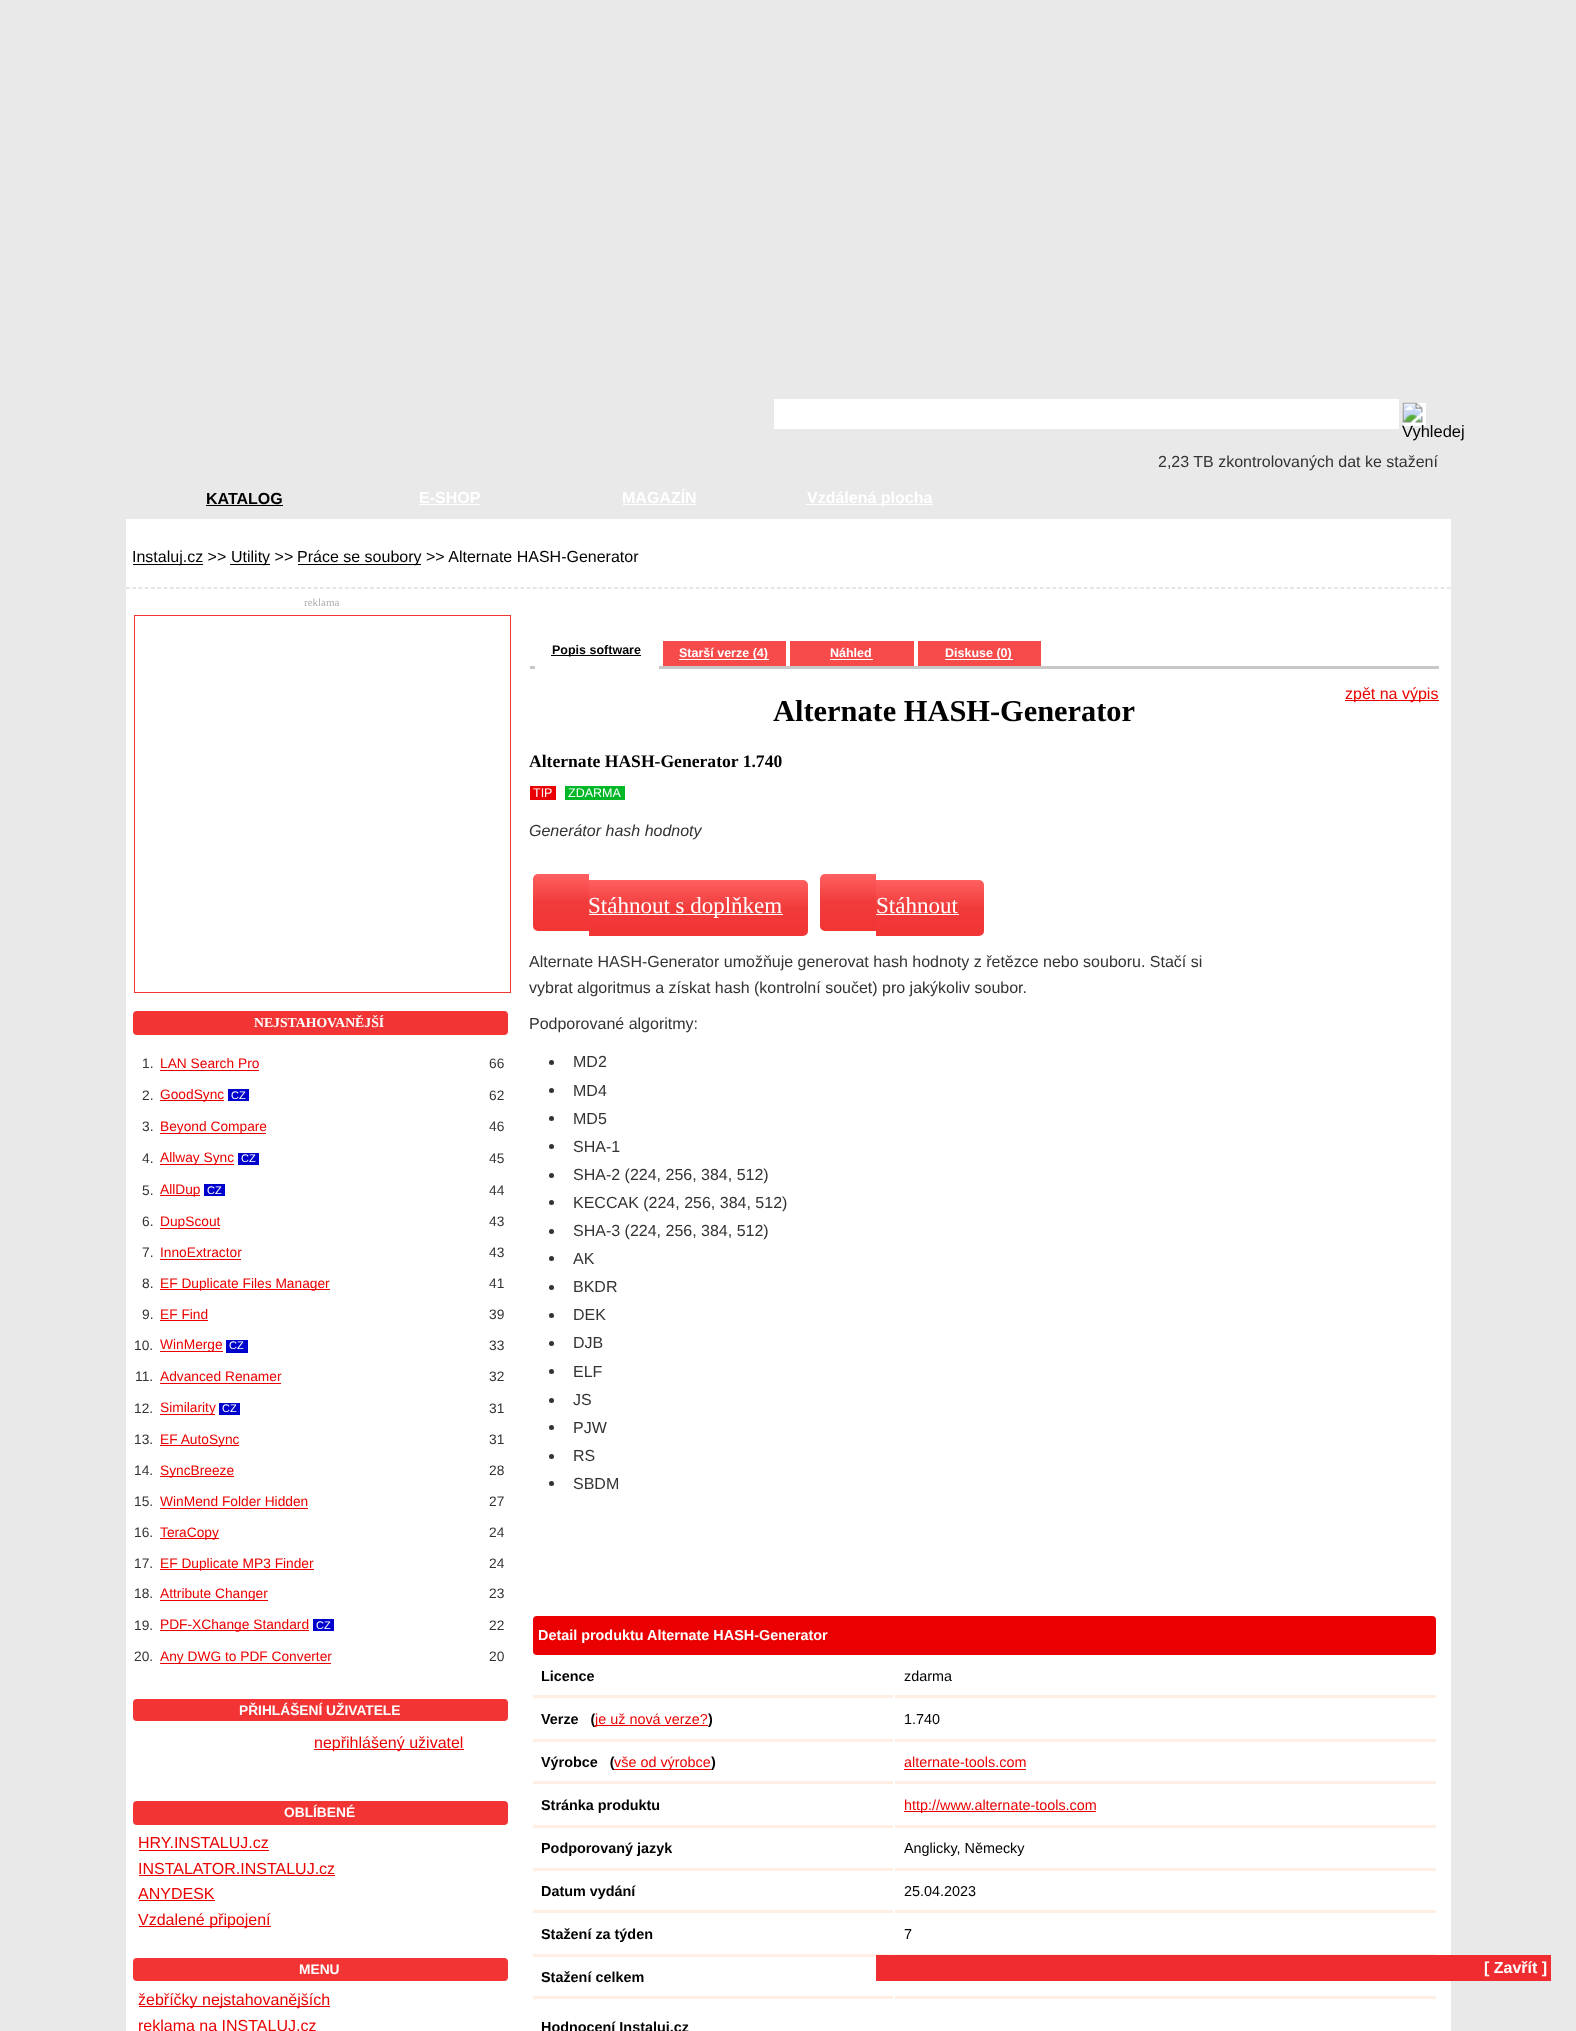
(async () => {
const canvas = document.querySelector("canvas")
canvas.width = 1576
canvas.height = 2031
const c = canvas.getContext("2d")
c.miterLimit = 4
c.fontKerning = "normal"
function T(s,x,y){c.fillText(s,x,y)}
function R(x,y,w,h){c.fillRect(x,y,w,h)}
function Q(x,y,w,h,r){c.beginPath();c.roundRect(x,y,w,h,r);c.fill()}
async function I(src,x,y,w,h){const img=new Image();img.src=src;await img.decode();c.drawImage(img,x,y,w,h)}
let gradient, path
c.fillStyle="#e9e9e9"
R(0,0,1576,2031)
c.fillStyle="#fff"
R(774,399,625,30)
R(1403,403,23,23)
await I("1.png",1402,402,22,25)
c.font="16.5px Liberation Sans"
c.fillStyle="#000"
T("Vyhledej",1402,437)
c.font="16px Liberation Sans"
c.fillStyle="#333"
T("2,23 TB zkontrolovaných dat ke stažení",1158,467)
c.font="bold 16px Liberation Sans"
c.fillStyle="#000"
T("KATALOG",206,504)
R(206,505,77,1)
c.fillStyle="#fff"
T("E-SHOP",419,503)
R(419,504,61,1)
T("MAGAZÍN",622,503)
R(623,504,73,1)
R(806,504,127,1)
T("Vzdálená plocha",807,503)
R(126,519,1325,1512)
c.fillStyle="#000"
R(133,564,70,1)
c.font="16px Liberation Sans"
T("Instaluj.cz >>",132,562)
R(230,564,40,1)
T("Utility >>",231,562)
R(298,564,123,1)
T("Práce se soubory >> Alternate HASH-Generator",297,562)
path = new Path2D("M126 588h1325")
c.strokeStyle="#cdcdcd"
c.lineWidth=1.2
c.setLineDash([3.75,2.51])
c.stroke(path)
c.font="11px Liberation Serif"
c.fillStyle="#aeaeae"
T("reklama",304,606)
c.strokeStyle="#f23434"
c.lineWidth=1
c.setLineDash([])
c.strokeRect(134.5,615.5,376,377)
c.fillStyle="#f23434"
Q(133,1011,375,24,4)
c.font="bold 13.75px Liberation Serif"
c.fillStyle="#fff"
T("NEJSTAHOVANĚJŠÍ",254,1027)
c.font="13.75px Liberation Sans"
c.fillStyle="#333"
T("1.",142,1068)
c.fillStyle="#ea0000"
T("LAN Search Pro",160,1068)
R(160,1070,99,1)
c.fillStyle="#333"
T("66",489,1068)
T("2.",142,1100)
c.fillStyle="#ea0000"
R(160,1100,64,1)
T("GoodSync",160,1099)
c.fillStyle="#00c"
R(228,1089,21,12)
c.font="11px Liberation Sans"
c.fillStyle="#fff"
T("CZ",231,1099)
c.font="13.75px Liberation Sans"
c.fillStyle="#333"
T("62",489,1100)
T("3.",142,1131)
c.fillStyle="#ea0000"
R(160,1133,106,1)
T("Beyond Compare",160,1131)
c.fillStyle="#333"
T("46",489,1131)
T("4.",142,1163)
c.fillStyle="#ea0000"
R(160,1164,74,1)
T("Allway Sync",160,1162)
c.fillStyle="#00c"
R(238,1153,21,12)
c.font="11px Liberation Sans"
c.fillStyle="#fff"
T("CZ",241,1162)
c.font="13.75px Liberation Sans"
c.fillStyle="#333"
T("45",489,1163)
T("5.",142,1195)
c.fillStyle="#ea0000"
R(160,1195,40,1)
T("AllDup",160,1194)
c.fillStyle="#00c"
R(204,1184,21,12)
c.font="11px Liberation Sans"
c.fillStyle="#fff"
T("CZ",207,1194)
c.font="13.75px Liberation Sans"
c.fillStyle="#333"
T("44",489,1195)
T("6.",142,1226)
c.fillStyle="#ea0000"
R(160,1228,60,1)
T("DupScout",160,1226)
c.fillStyle="#333"
T("43",489,1226)
T("7.",142,1257)
c.fillStyle="#ea0000"
T("InnoExtractor",160,1257)
R(160,1259,81,1)
c.fillStyle="#333"
T("43",489,1257)
T("8.",142,1288)
c.fillStyle="#ea0000"
R(160,1289,170,1)
T("EF Duplicate Files Manager",160,1288)
c.fillStyle="#333"
T("41",489,1288)
T("9.",142,1319)
c.fillStyle="#ea0000"
T("EF Find",160,1319)
R(160,1320,48,1)
c.fillStyle="#333"
T("39",489,1319)
T("10.",134,1350)
c.fillStyle="#ea0000"
R(160,1351,63,1)
T("WinMerge",160,1349)
c.fillStyle="#00c"
R(226,1340,22,13)
c.font="11px Liberation Sans"
c.fillStyle="#fff"
T("CZ",229,1349)
c.font="13.75px Liberation Sans"
c.fillStyle="#333"
T("33",489,1350)
T("11.",135,1381)
c.fillStyle="#ea0000"
T("Advanced Renamer",160,1381)
R(160,1383,121,1)
c.fillStyle="#333"
T("32",489,1381)
T("12.",134,1413)
c.fillStyle="#ea0000"
R(160,1414,55,1)
T("Similarity",160,1412)
c.fillStyle="#00c"
R(219,1403,21,12)
c.font="11px Liberation Sans"
c.fillStyle="#fff"
T("CZ",222,1412)
c.font="13.75px Liberation Sans"
c.fillStyle="#333"
T("31",489,1413)
T("13.",134,1444)
c.fillStyle="#ea0000"
R(160,1445,79,1)
T("EF AutoSync",160,1444)
c.fillStyle="#333"
T("31",489,1444)
T("14.",134,1475)
c.fillStyle="#ea0000"
R(160,1476,74,1)
T("SyncBreeze",160,1475)
c.fillStyle="#333"
T("28",489,1475)
T("15.",134,1506)
c.fillStyle="#ea0000"
T("WinMend Folder Hidden",160,1506)
R(160,1508,148,1)
c.fillStyle="#333"
T("27",489,1506)
T("16.",134,1537)
c.fillStyle="#ea0000"
R(160,1538,59,1)
T("TeraCopy",160,1537)
c.fillStyle="#333"
T("24",489,1537)
T("17.",134,1568)
c.fillStyle="#ea0000"
R(160,1569,154,1)
T("EF Duplicate MP3 Finder",160,1568)
c.fillStyle="#333"
T("24",489,1568)
T("18.",134,1598)
c.fillStyle="#ea0000"
R(160,1600,108,1)
T("Attribute Changer",160,1598)
c.fillStyle="#333"
T("23",489,1598)
T("19.",134,1630)
c.fillStyle="#ea0000"
R(160,1630,149,1)
T("PDF-XChange Standard",160,1629)
c.fillStyle="#00c"
R(313,1619,21,12)
c.font="11px Liberation Sans"
c.fillStyle="#fff"
T("CZ",316,1629)
c.font="13.75px Liberation Sans"
c.fillStyle="#333"
T("22",489,1630)
T("20.",134,1661)
c.fillStyle="#ea0000"
R(160,1663,171,1)
T("Any DWG to PDF Converter",160,1661)
c.fillStyle="#333"
T("20",489,1661)
c.fillStyle="#f23434"
Q(133,1699,375,22,4)
c.font="bold 13.75px Liberation Sans"
c.fillStyle="#fff"
T("PŘIHLÁŠENÍ UŽIVATELE",239,1715)
c.fillStyle="#ea0000"
R(314,1749,150,1)
c.font="16px Liberation Sans"
T("nepřihlášený uživatel",314,1748)
c.fillStyle="#f23434"
Q(133,1801,375,24,4)
c.font="bold 13.75px Liberation Sans"
c.fillStyle="#fff"
T("OBLÍBENÉ",284,1817)
c.font="16px Liberation Sans"
c.fillStyle="#ea0000"
T("HRY.INSTALUJ.cz",138,1848)
R(139,1850,130,1)
T("INSTALATOR.INSTALUJ.cz",138,1874)
R(139,1875,196,1)
T("ANYDESK",138,1899)
R(139,1900,76,1)
R(139,1926,132,1)
T("Vzdalené připojení",138,1925)
c.fillStyle="#f23434"
Q(133,1958,375,23,4)
c.font="bold 13.75px Liberation Sans"
c.fillStyle="#fff"
T("MENU",299,1974)
c.fillStyle="#ea0000"
R(139,2006,191,1)
c.font="16px Liberation Sans"
T("žebříčky nejstahovanějších",138,2005)
T("reklama na INSTALUJ.cz",138,2031)
c.fillStyle="#c8c8c8"
R(530,666,909,3)
c.fillStyle="#fff"
R(535,666,124,3)
c.fillStyle="#000"
R(551,655,90,1)
c.font="bold 12.5px Liberation Sans"
T("Popis software",552,654)
c.fillStyle="#f74b4b"
R(663,641,123,25)
c.fillStyle="#fff"
R(679,659,90,1)
T("Starší verze (4)",679,657)
c.fillStyle="#f74b4b"
R(790,641,124,25)
c.fillStyle="#fff"
T("Náhled",830,657)
R(830,659,43,1)
c.fillStyle="#f74b4b"
R(918,641,123,25)
c.fillStyle="#fff"
R(945,659,68,1)
T("Diskuse (0)",945,657)
c.fillStyle="#ea0000"
R(1345,700,94,1)
c.font="16px Liberation Sans"
T("zpět na výpis",1345,699)
c.font="bold 30.4px Liberation Serif"
c.fillStyle="#000"
T("Alternate HASH-Generator",773,721)
c.font="bold 17.6px Liberation Serif"
T("Alternate HASH-Generator 1.740",529,767)
c.fillStyle="#ea0000"
R(530,786,26,14)
c.font="12.5px Liberation Sans"
c.fillStyle="#fff"
T("TIP",533,797)
c.fillStyle="#00b827"
R(565,786,60,14)
c.fillStyle="#fff"
T("ZDARMA",568,797)
c.font="italic 16px Liberation Sans"
c.fillStyle="#333"
T("Generátor hash hodnoty",529,836)
gradient = c.createLinearGradient(698,880,698,936)
gradient.addColorStop(0,"#ff6060")
gradient.addColorStop(.5,"#f13b3b")
gradient.addColorStop(1,"#f23434")
c.fillStyle = gradient
c.beginPath()
c.roundRect(589,880,219,56,[0,5,5,0])
c.fill()
c.fillStyle="#fff"
R(589,914,194,1)
c.font="23px Liberation Serif"
T("Stáhnout s doplňkem",588,913)
gradient = c.createLinearGradient(561,874,561,931)
gradient.addColorStop(0,"#ff6060")
gradient.addColorStop(.5,"#f13b3b")
gradient.addColorStop(1,"#f23434")
c.fillStyle = gradient
c.beginPath()
c.roundRect(533,874,56,57,[5,0,0,5])
c.fill()
gradient = c.createLinearGradient(930,880,930,936)
gradient.addColorStop(0,"#ff6060")
gradient.addColorStop(.5,"#f13b3b")
gradient.addColorStop(1,"#f23434")
c.fillStyle = gradient
c.beginPath()
c.roundRect(876,880,108,56,[0,5,5,0])
c.fill()
c.fillStyle="#fff"
T("Stáhnout",876,913)
gradient = c.createLinearGradient(848,874,848,931)
gradient.addColorStop(0,"#ff6060")
gradient.addColorStop(.5,"#f13b3b")
gradient.addColorStop(1,"#f23434")
c.fillStyle = gradient
c.beginPath()
c.roundRect(820,874,56,57,[5,0,0,5])
c.fill()
c.fillStyle="#fff"
R(876,914,83,1)
c.font="16px Liberation Sans"
c.fillStyle="#333"
T("Alternate HASH-Generator umožňuje generovat hash hodnoty z řetězce nebo souboru. Stačí si",529,967)
T("vybrat algoritmus a získat hash (kontrolní součet) pro jakýkoliv soubor.",529,993)
T("Podporované algoritmy:",529,1029)
c.beginPath()
c.arc(551.5,1062.5,2.5,0,7)
c.fill()
T("MD2",573,1067)
c.beginPath()
c.arc(551.5,1090.5,2.5,0,7)
c.fill()
T("MD4",573,1096)
c.beginPath()
c.arc(551.5,1118.5,2.5,0,7)
c.fill()
T("MD5",573,1124)
c.beginPath()
c.arc(551.5,1146.5,2.5,0,7)
c.fill()
T("SHA-1",573,1152)
c.beginPath()
c.arc(551.5,1175.5,2.5,0,7)
c.fill()
T("SHA-2 (224, 256, 384, 512)",573,1180)
c.beginPath()
c.arc(551.5,1202.5,2.5,0,7)
c.fill()
T("KECCAK (224, 256, 384, 512)",573,1208)
c.beginPath()
c.arc(551.5,1231.5,2.5,0,7)
c.fill()
T("SHA-3 (224, 256, 384, 512)",573,1236)
c.beginPath()
c.arc(551.5,1258.5,2.5,0,7)
c.fill()
T("AK",573,1264)
c.beginPath()
c.arc(551.5,1287.5,2.5,0,7)
c.fill()
T("BKDR",573,1292)
c.beginPath()
c.arc(551.5,1315.5,2.5,0,7)
c.fill()
T("DEK",573,1320)
c.beginPath()
c.arc(551.5,1343.5,2.5,0,7)
c.fill()
T("DJB",573,1348)
c.beginPath()
c.arc(551.5,1371.5,2.5,0,7)
c.fill()
T("ELF",573,1377)
c.beginPath()
c.arc(551.5,1400.5,2.5,0,7)
c.fill()
T("JS",573,1405)
c.beginPath()
c.arc(551.5,1427.5,2.5,0,7)
c.fill()
T("PJW",573,1433)
c.beginPath()
c.arc(551.5,1456.5,2.5,0,7)
c.fill()
T("RS",573,1461)
c.beginPath()
c.arc(551.5,1483.5,2.5,0,7)
c.fill()
T("SBDM",573,1489)
c.fillStyle="#ea0000"
Q(533,1616,903,39,4)
c.font="bold 14.4px Liberation Sans"
c.fillStyle="#fff"
T("Detail produktu Alternate HASH-Generator",538,1640)
c.fillStyle="#feeee3"
R(533,1695,360,3)
c.fillStyle="#000"
T("Licence",541,1681)
c.fillStyle="#feeee3"
R(895,1695,541,3)
c.font="14.4px Liberation Sans"
c.fillStyle="#000"
T("zdarma",904,1681)
c.fillStyle="#feeee3"
R(533,1739,360,3)
c.font="bold 14.4px Liberation Sans"
c.fillStyle="#000"
T("Verze   (",541,1724)
c.fillStyle="#ea0000"
R(595,1725,113,1)
c.font="14.4px Liberation Sans"
T("je už nová verze?",595,1724)
c.font="bold 14.4px Liberation Sans"
c.fillStyle="#000"
T(")",708,1724)
c.fillStyle="#feeee3"
R(895,1739,541,3)
c.font="14.4px Liberation Sans"
c.fillStyle="#000"
T("1.740",904,1724)
c.fillStyle="#feeee3"
R(533,1781,360,3)
c.font="bold 14.4px Liberation Sans"
c.fillStyle="#000"
T("Výrobce   (",541,1767)
c.fillStyle="#ea0000"
R(614,1769,97,1)
c.font="14.4px Liberation Sans"
T("vše od výrobce",614,1767)
c.font="bold 14.4px Liberation Sans"
c.fillStyle="#000"
T(")",711,1767)
c.fillStyle="#feeee3"
R(895,1781,541,3)
c.font="14.4px Liberation Sans"
c.fillStyle="#ea0000"
T("alternate-tools.com",904,1767)
R(904,1769,122,1)
c.fillStyle="#feeee3"
R(533,1825,360,3)
c.font="bold 14.4px Liberation Sans"
c.fillStyle="#000"
T("Stránka produktu",541,1810)
c.fillStyle="#feeee3"
R(895,1825,541,3)
c.fillStyle="#ea0000"
R(904,1811,192,1)
c.font="14.4px Liberation Sans"
T("http://www.alternate-tools.com",904,1810)
c.fillStyle="#feeee3"
R(533,1868,360,3)
c.font="bold 14.4px Liberation Sans"
c.fillStyle="#000"
T("Podporovaný jazyk",541,1853)
c.fillStyle="#feeee3"
R(895,1868,541,3)
c.font="14.4px Liberation Sans"
c.fillStyle="#000"
T("Anglicky, Německy",904,1853)
c.fillStyle="#feeee3"
R(533,1910,360,3)
c.font="bold 14.4px Liberation Sans"
c.fillStyle="#000"
T("Datum vydání",541,1896)
c.fillStyle="#feeee3"
R(895,1910,541,3)
c.font="14.4px Liberation Sans"
c.fillStyle="#000"
T("25.04.2023",904,1896)
c.fillStyle="#feeee3"
R(533,1954,360,3)
c.font="bold 14.4px Liberation Sans"
c.fillStyle="#000"
T("Stažení za týden",541,1939)
c.fillStyle="#feeee3"
R(895,1954,541,1)
c.font="14.4px Liberation Sans"
c.fillStyle="#000"
T("7",904,1939)
c.fillStyle="#feeee3"
R(533,1996,360,3)
c.font="bold 14.4px Liberation Sans"
c.fillStyle="#000"
T("Stažení celkem",541,1982)
c.fillStyle="#feeee3"
R(895,1996,541,3)
c.fillStyle="#000"
T("Hodnocení Instaluj.cz",541,2032)
c.fillStyle="#ef2c30"
R(876,1955,675,26)
c.font="bold 16px Liberation Sans"
c.fillStyle="#fff"
T("[ Zavřít ]",1484,1973)
})()
